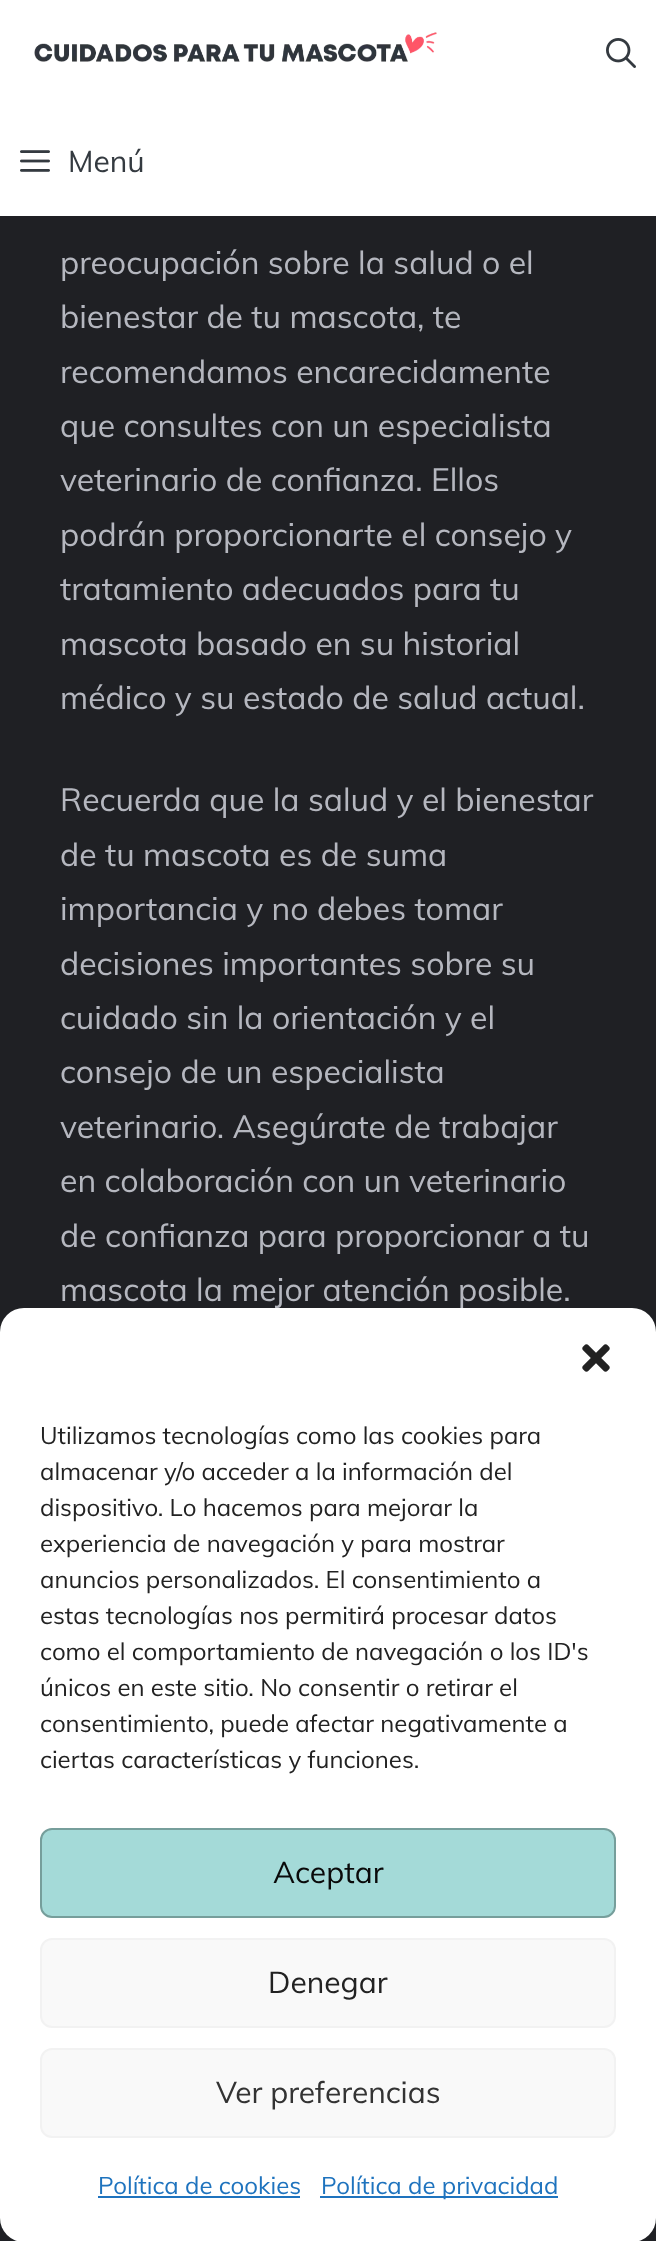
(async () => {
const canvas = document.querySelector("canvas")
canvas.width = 656
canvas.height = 2241
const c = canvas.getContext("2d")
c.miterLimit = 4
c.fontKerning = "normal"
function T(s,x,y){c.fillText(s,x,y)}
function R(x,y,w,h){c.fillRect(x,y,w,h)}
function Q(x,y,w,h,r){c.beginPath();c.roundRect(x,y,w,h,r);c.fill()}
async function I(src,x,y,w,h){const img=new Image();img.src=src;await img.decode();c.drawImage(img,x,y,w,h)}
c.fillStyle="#1f2024"
R(0,0,656,2241)
c.fillStyle="#fff"
R(0,0,656,216)
await I("1.png",34,32,403,30)
await I("2.png",606,38,30,30)
await I("3.png",20,150,30,22)
c.font="30px Muli"
c.fillStyle="#343a40"
T("Menú",68,172)
c.font="32px Muli"
c.fillStyle="#b5b7bf"
T("preocupación sobre la salud o el",60,274)
T("bienestar de tu mascota, te",60,328)
T("recomendamos encarecidamente",60,383)
T("que consultes con un especialista",60,437)
T("veterinario de confianza. Ellos",60,491)
T("podrán proporcionarte el consejo y",60,546)
T("tratamiento adecuados para tu",60,600)
T("mascota basado en su historial",60,655)
T("médico y su estado de salud actual.",60,709)
T("Recuerda que la salud y el bienestar",60,811)
T("de tu mascota es de suma",60,866)
T("importancia y no debes tomar",60,920)
T("decisiones importantes sobre su",60,975)
T("cuidado sin la orientación y el",60,1029)
T("consejo de un especialista",60,1083)
T("veterinario. Asegúrate de trabajar",60,1138)
T("en colaboración con un veterinario",60,1192)
T("de confianza para proporcionar a tu",60,1247)
T("mascota la mejor atención posible.",60,1301)
c.fillStyle="#fff"
Q(0,1308,656,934,24)
await I("4.png",582,1344,28,28)
c.font="24px Muli"
c.fillStyle="#222"
T("Utilizamos tecnologías como las cookies para",40,1444)
T("almacenar y/o acceder a la información del",40,1480)
T("dispositivo. Lo hacemos para mejorar la",40,1516)
T("experiencia de navegación y para mostrar",40,1552)
T("anuncios personalizados. El consentimiento a",40,1588)
T("estas tecnologías nos permitirá procesar datos",40,1624)
T("como el comportamiento de navegación o los ID's",40,1660)
T("únicos en este sitio. No consentir o retirar el",40,1696)
T("consentimiento, puede afectar negativamente a",40,1732)
T("ciertas características y funciones.",40,1768)
c.fillStyle="#a4dad8"
c.beginPath()
c.roundRect(41,1829,574,88,11)
c.fill()
c.strokeStyle="#769e9b"
c.lineWidth=2
c.stroke()
c.font="30px Muli"
c.fillStyle="#0a0a0a"
T("Aceptar",273,1883)
c.fillStyle="#f9f9f9"
c.beginPath()
c.roundRect(41,1939,574,88,11)
c.fill()
c.strokeStyle="#f2f2f2"
c.stroke()
c.fillStyle="#222"
T("Denegar",268,1993)
c.fillStyle="#f9f9f9"
c.beginPath()
c.roundRect(41,2049,574,88,11)
c.fill()
c.stroke()
c.fillStyle="#333"
T("Ver preferencias",216,2103)
c.font="24px Muli"
c.fillStyle="#1e73be"
T("Política de cookies",98,2194)
R(98,2196,202,2)
R(320,2196,238,2)
T("Política de privacidad",321,2194)
})()
